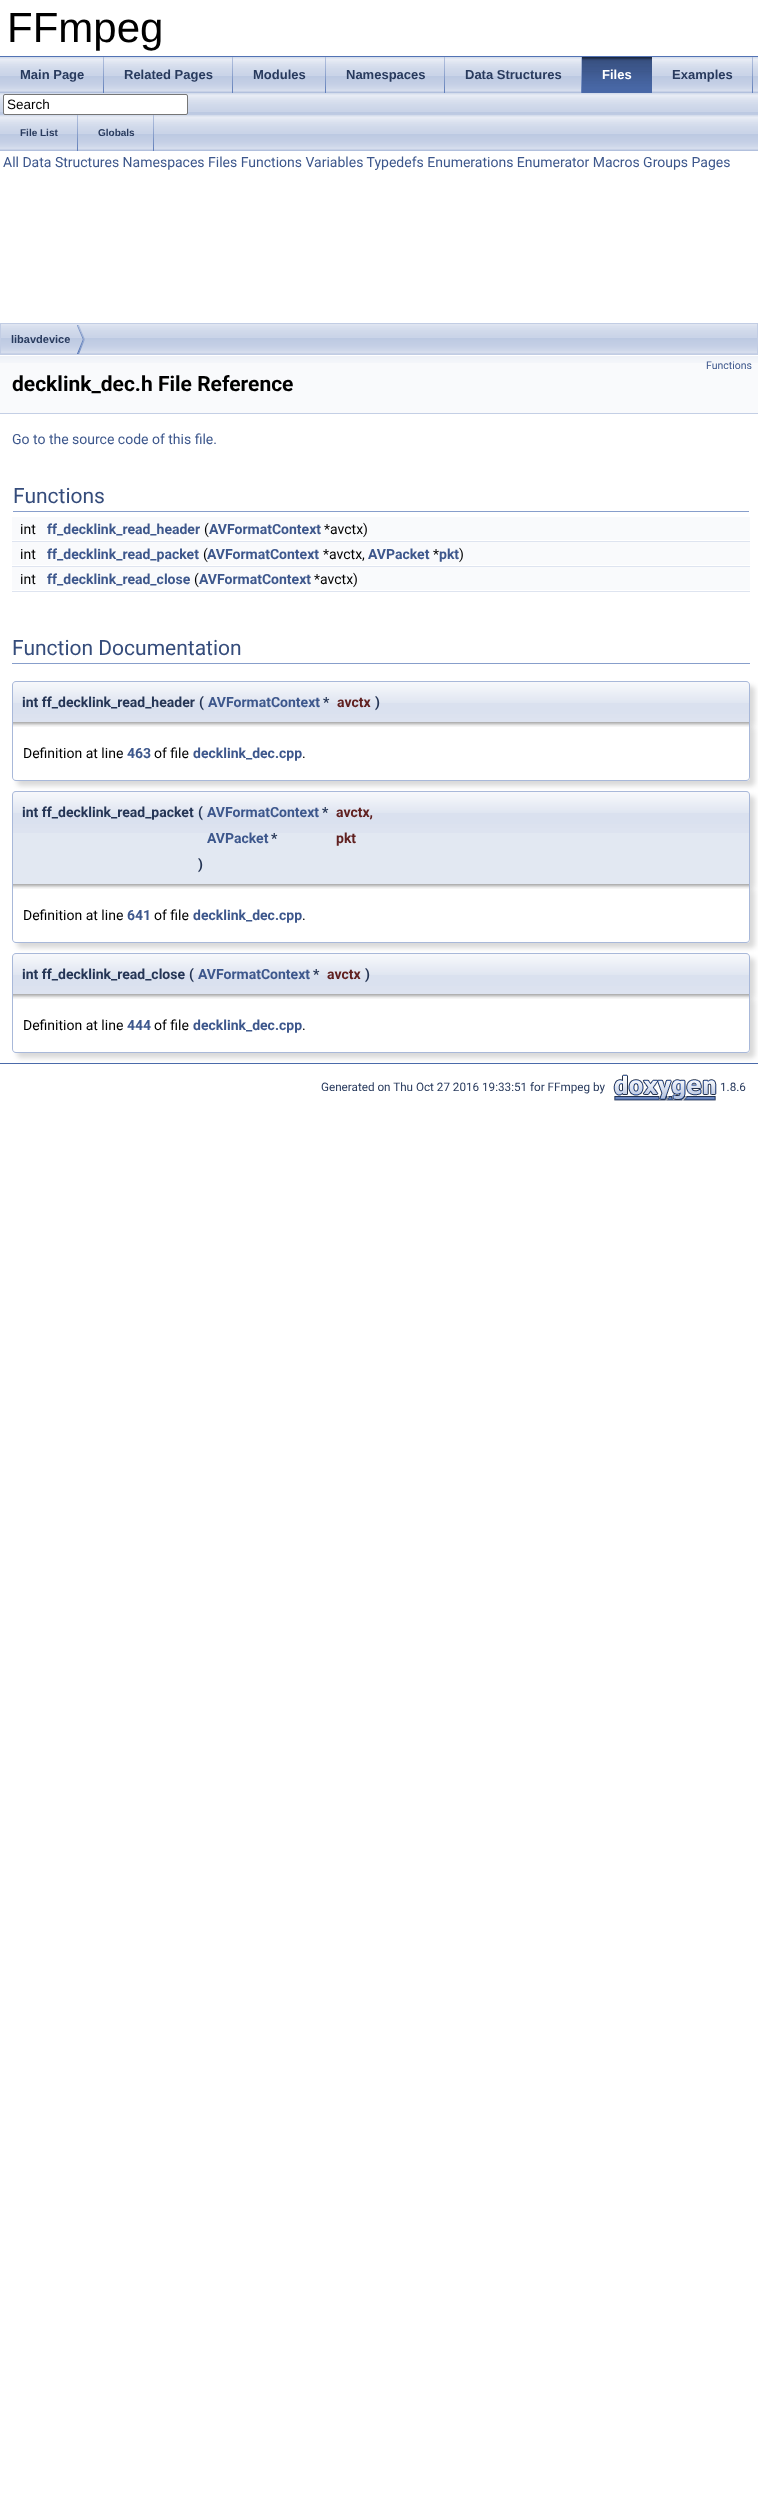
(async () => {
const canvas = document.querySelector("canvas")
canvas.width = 758
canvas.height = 2504
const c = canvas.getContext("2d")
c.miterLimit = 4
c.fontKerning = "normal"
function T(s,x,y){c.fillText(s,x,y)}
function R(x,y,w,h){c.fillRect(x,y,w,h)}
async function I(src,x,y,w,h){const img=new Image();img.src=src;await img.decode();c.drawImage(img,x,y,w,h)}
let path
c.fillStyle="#fff"
R(0,0,758,2504)
c.fillStyle="#5373b4"
R(0,56,758,1)
c.font="42px Liberation Sans"
c.fillStyle="#000"
T("FFmpeg",7,42)
await I("1.png",0,57,758,58)
await I("2.png",103,57,1,36)
c.font="bold 13px Liberation Sans"
c.fillStyle="#283a5d"
T("Main Page",20,79)
await I("2.png",232,57,1,36)
T("Related Pages",124,79)
await I("2.png",325,57,1,36)
T("Modules",253,79)
await I("2.png",444,57,1,36)
T("Namespaces",346,79)
await I("2.png",581,57,1,36)
T("Data Structures",465,79)
await I("3.png",582,57,70,36)
c.fillStyle="#fff"
T("Files",602,79)
await I("2.png",752,57,1,36)
c.fillStyle="#283a5d"
T("Examples",672,79)
c.fillStyle="#fff"
c.beginPath()
c.roundRect(3.5,94.5,184,20,1.5)
c.fill()
c.strokeStyle="#767676"
c.stroke()
c.font="13.5px Liberation Sans"
c.fillStyle="#000"
T("Search",7,109)
await I("4.png",0,115,758,36)
await I("2.png",77,115,1,36)
c.font="bold 10px Liberation Sans"
c.fillStyle="#283a5d"
T("File List",20,136)
await I("2.png",153,115,1,36)
T("Globals",98,136)
c.font="14px Roboto"
c.fillStyle="#3d578c"
T("All Data Structures Namespaces Files Functions Variables Typedefs Enumerations Enumerator Macros Groups Pages",3,167)
await I("5.png",1,324,756,30)
c.strokeStyle="#c2cde4"
c.strokeRect(.5,323.5,757,31)
await I("6.png",77,325,8,29)
c.font="bold 11px Liberation Sans"
c.fillStyle="#283a5d"
T("libavdevice",11,343)
c.fillStyle="#f9fafc"
R(0,363,758,50)
await I("7.png",0,355,758,8)
c.fillStyle="#c4cfe5"
R(0,413,758,1)
c.font="10.5px Roboto"
c.fillStyle="#3d578c"
T("Functions",706,369)
c.font="bold 21px Roboto"
c.fillStyle="#000"
T("decklink_dec.h File Reference",12,391)
c.font="14px Roboto"
c.fillStyle="#3d578c"
T("Go to the source code of this file.",12,444)
c.fillStyle="#879ecb"
R(13,511,736,1)
c.font="21px Roboto"
c.fillStyle="#354c7b"
T("Functions",13,503)
c.fillStyle="#f9fafc"
R(12,517,738,23)
c.font="14px Roboto"
c.fillStyle="#000"
T("int",20,534)
c.font="bold 14px Roboto"
c.fillStyle="#3d578c"
T("ff_decklink_read_header",47,534)
c.font="14px Roboto"
c.fillStyle="#000"
T("(",204,534)
c.font="bold 14px Roboto"
c.fillStyle="#3d578c"
T("AVFormatContext",209,534)
c.font="14px Roboto"
c.fillStyle="#000"
T("*avctx)",324,534)
c.fillStyle="#dee4f0"
R(12,541,738,1)
c.fillStyle="#f9fafc"
R(12,542,738,23)
c.fillStyle="#000"
T("int",20,559)
c.font="bold 14px Roboto"
c.fillStyle="#3d578c"
T("ff_decklink_read_packet",47,559)
c.font="14px Roboto"
c.fillStyle="#000"
T("(",203,559)
c.font="bold 14px Roboto"
c.fillStyle="#3d578c"
T("AVFormatContext",207,559)
c.font="14px Roboto"
c.fillStyle="#000"
T("*avctx,",323,559)
c.font="bold 14px Roboto"
c.fillStyle="#3d578c"
T("AVPacket",368,559)
c.font="14px Roboto"
c.fillStyle="#000"
T("*",433,559)
c.font="bold 14px Roboto"
c.fillStyle="#3d578c"
T("pkt",439,559)
c.font="14px Roboto"
c.fillStyle="#000"
T(")",459,559)
c.fillStyle="#dee4f0"
R(12,566,738,1)
c.fillStyle="#f9fafc"
R(12,567,738,23)
c.fillStyle="#000"
T("int",20,584)
c.font="bold 14px Roboto"
c.fillStyle="#3d578c"
T("ff_decklink_read_close",47,584)
c.font="14px Roboto"
c.fillStyle="#000"
T("(",194,584)
c.font="bold 14px Roboto"
c.fillStyle="#3d578c"
T("AVFormatContext",199,584)
c.font="14px Roboto"
c.fillStyle="#000"
T("*avctx)",314,584)
c.fillStyle="#dee4f0"
R(12,591,738,1)
c.fillStyle="#879ecb"
R(12,663,738,1)
c.font="21px Roboto"
c.fillStyle="#354c7b"
T("Function Documentation",12,655)
c.fillStyle="#00000026"
c.filter="blur(2.5px)"
c.beginPath()
c.roundRect(17,686,738,41,4)
c.fill()
c.filter="none"
await I("8.png",12,682,738,40)
c.fillStyle="#a8b8d9"
path = new Path2D("M16 681h730c2 0 4 2 4 4v37h-738v-37c0-2 2-4 4-4zm0 1h730c2 0 3 1 3 3v37h-736v-37c0-2 1-3 3-3z")
c.fill(path,"evenodd")
c.font="bold 14px Roboto"
c.fillStyle="#253555"
T("int ff_decklink_read_header",22,707)
T("(",199,707)
c.fillStyle="#3d578c"
T("AVFormatContext",208,707)
c.fillStyle="#253555"
T("*",323,707)
c.fillStyle="#602020"
T("avctx",337,707)
c.fillStyle="#253555"
T(")",375,707)
c.fillStyle="#00000026"
c.filter="blur(2.5px)"
c.beginPath()
c.roundRect(17,727,738,59,4)
c.fill()
c.filter="none"
c.fillStyle="#fff"
c.beginPath()
c.roundRect(12,722,738,59,[0,0,4,4])
c.fill()
await I("9.png",13,722,736,5)
c.fillStyle="#a8b8d9"
path = new Path2D("M12 722h738v55c0 2-2 4-4 4h-730c-2 0-4-2-4-4zm1 0h736v55c0 2-1 3-3 3h-730c-2 0-3-1-3-3z")
c.fill(path,"evenodd")
c.font="14px Roboto"
c.fillStyle="#000"
T("Definition at line",23,758)
c.font="bold 14px Roboto"
c.fillStyle="#3d578c"
T("463",127,758)
c.font="14px Roboto"
c.fillStyle="#000"
T("of file",154,758)
c.font="bold 14px Roboto"
c.fillStyle="#3d578c"
T("decklink_dec.cpp",193,758)
c.font="14px Roboto"
c.fillStyle="#000"
T(".",302,758)
c.fillStyle="#00000026"
c.filter="blur(2.5px)"
c.beginPath()
c.roundRect(17,796,738,93,4)
c.fill()
c.filter="none"
c.fillStyle="#e2e8f2"
c.beginPath()
c.roundRect(12,791,738,93,[4,4,0,0])
c.fill()
await I("10.png",12,792,738,41)
c.fillStyle="#a8b8d9"
path = new Path2D("M16 791h730c2 0 4 2 4 4v89h-738v-89c0-2 2-4 4-4zm0 1h730c2 0 3 1 3 3v89h-736v-89c0-2 1-3 3-3z")
c.fill(path,"evenodd")
c.font="bold 14px Roboto"
c.fillStyle="#253555"
T("int ff_decklink_read_packet",22,817)
T("(",198,817)
c.fillStyle="#3d578c"
T("AVFormatContext",207,817)
c.fillStyle="#253555"
T("*",322,817)
c.fillStyle="#602020"
T("avctx,",336,817)
c.fillStyle="#3d578c"
T("AVPacket",207,843)
c.fillStyle="#253555"
T("*",271,843)
c.fillStyle="#602020"
T("pkt",336,843)
c.fillStyle="#253555"
T(")",198,869)
c.fillStyle="#00000026"
c.filter="blur(2.5px)"
c.beginPath()
c.roundRect(17,889,738,59,4)
c.fill()
c.filter="none"
c.fillStyle="#fff"
c.beginPath()
c.roundRect(12,884,738,59,[0,0,4,4])
c.fill()
await I("9.png",13,884,736,5)
c.fillStyle="#a8b8d9"
path = new Path2D("M12 884h738v55c0 2-2 4-4 4h-730c-2 0-4-2-4-4zm1 0h736v55c0 2-1 3-3 3h-730c-2 0-3-1-3-3z")
c.fill(path,"evenodd")
c.font="14px Roboto"
c.fillStyle="#000"
T("Definition at line",23,920)
c.font="bold 14px Roboto"
c.fillStyle="#3d578c"
T("641",127,920)
c.font="14px Roboto"
c.fillStyle="#000"
T("of file",154,920)
c.font="bold 14px Roboto"
c.fillStyle="#3d578c"
T("decklink_dec.cpp",193,920)
c.font="14px Roboto"
c.fillStyle="#000"
T(".",302,920)
c.fillStyle="#00000026"
c.filter="blur(2.5px)"
c.beginPath()
c.roundRect(17,958,738,41,4)
c.fill()
c.filter="none"
await I("11.png",12,954,738,40)
c.fillStyle="#a8b8d9"
path = new Path2D("M16 953h730c2 0 4 2 4 4v37h-738v-37c0-2 2-4 4-4zm0 1h730c2 0 3 1 3 3v37h-736v-37c0-2 1-3 3-3z")
c.fill(path,"evenodd")
c.font="bold 14px Roboto"
c.fillStyle="#253555"
T("int ff_decklink_read_close",22,979)
T("(",189,979)
c.fillStyle="#3d578c"
T("AVFormatContext",198,979)
c.fillStyle="#253555"
T("*",313,979)
c.fillStyle="#602020"
T("avctx",327,979)
c.fillStyle="#253555"
T(")",365,979)
c.fillStyle="#00000026"
c.filter="blur(2.5px)"
c.beginPath()
c.roundRect(17,999,738,59,4)
c.fill()
c.filter="none"
c.fillStyle="#fff"
c.beginPath()
c.roundRect(12,994,738,59,[0,0,4,4])
c.fill()
await I("9.png",13,994,736,5)
c.fillStyle="#a8b8d9"
path = new Path2D("M12 994h738v55c0 2-2 4-4 4h-730c-2 0-4-2-4-4zm1 0h736v55c0 2-1 3-3 3h-730c-2 0-3-1-3-3z")
c.fill(path,"evenodd")
c.font="14px Roboto"
c.fillStyle="#000"
T("Definition at line",23,1030)
c.font="bold 14px Roboto"
c.fillStyle="#3d578c"
T("444",127,1030)
c.font="14px Roboto"
c.fillStyle="#000"
T("of file",154,1030)
c.font="bold 14px Roboto"
c.fillStyle="#3d578c"
T("decklink_dec.cpp",193,1030)
c.font="14px Roboto"
c.fillStyle="#000"
T(".",302,1030)
c.fillStyle="#4a6aaa"
R(0,1063,758,1)
c.font="11.7px Roboto"
c.fillStyle="#283a5d"
T("Generated on Thu Oct 27 2016 19:33:51 for FFmpeg by",321,1091)
await I("12.png",613,1074,104,27)
T("1.8.6",720,1091)
})()
